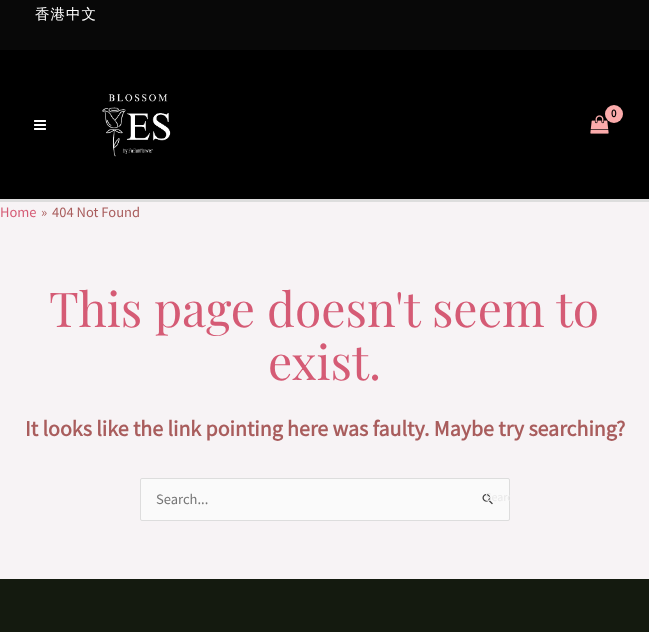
(async () => {
const canvas = document.querySelector("canvas")
canvas.width = 649
canvas.height = 632
const c = canvas.getContext("2d")
c.miterLimit = 4
c.fontKerning = "normal"
function T(s,x,y){c.fillText(s,x,y)}
function R(x,y,w,h){c.fillRect(x,y,w,h)}
async function I(src,x,y,w,h){const img=new Image();img.src=src;await img.decode();c.drawImage(img,x,y,w,h)}
c.fillStyle="#f7f3f5"
R(0,0,649,632)
c.fillStyle="#080808"
R(0,0,649,50)
c.letterSpacing="1px"
c.font="500 14.5px WenQuanYi Zen Hei"
c.fillStyle="#fff"
T("香港中文",35,19)
c.fillStyle="#000"
R(0,50,649,149)
c.fillStyle="#ddd"
R(0,199,649,3)
await I("1.png",34,120,12,10)
await I("2.png",102,94,69,63)
await I("3.png",590,115,19,19)
c.fillStyle="#fbabab"
c.beginPath()
c.arc(614,114,9,0,7)
c.fill()
c.letterSpacing="0px"
c.font="bold 11px Source Sans Pro"
c.fillStyle="#000"
T("0",611,117)
c.font="14.5px Source Sans Pro"
c.fillStyle="#d55b75"
T("Home",0,217)
c.fillStyle="#a95d5d"
T("»",41,217)
T("404 Not Found",52,217)
c.font="48px Playfair Display"
c.fillStyle="#d55b75"
T("This page doesn't seem to",49,327)
T("exist.",268,380)
c.font="bold 21.9px Source Sans Pro"
c.fillStyle="#a95d5d"
T("It looks like the link pointing here was faulty. Maybe try searching?",25,436)
c.fillStyle="#fafafa"
c.beginPath()
c.roundRect(140.5,478.5,369,42,1.5)
c.fill()
c.strokeStyle="#ddd"
c.stroke()
c.font="14.5px Source Sans Pro"
c.fillStyle="#757575"
T("Search...",156,504)
await I("4.png",482,494,11,11)
c.save()
c.beginPath()
c.roundRect(465,478,45,38,2)
c.clip()
c.font="12px Source Sans Pro"
c.fillStyle="#e9e9e9"
T("Searc",485,501)
c.restore()
c.fillStyle="#141a0f"
R(0,579,649,53)
})()
